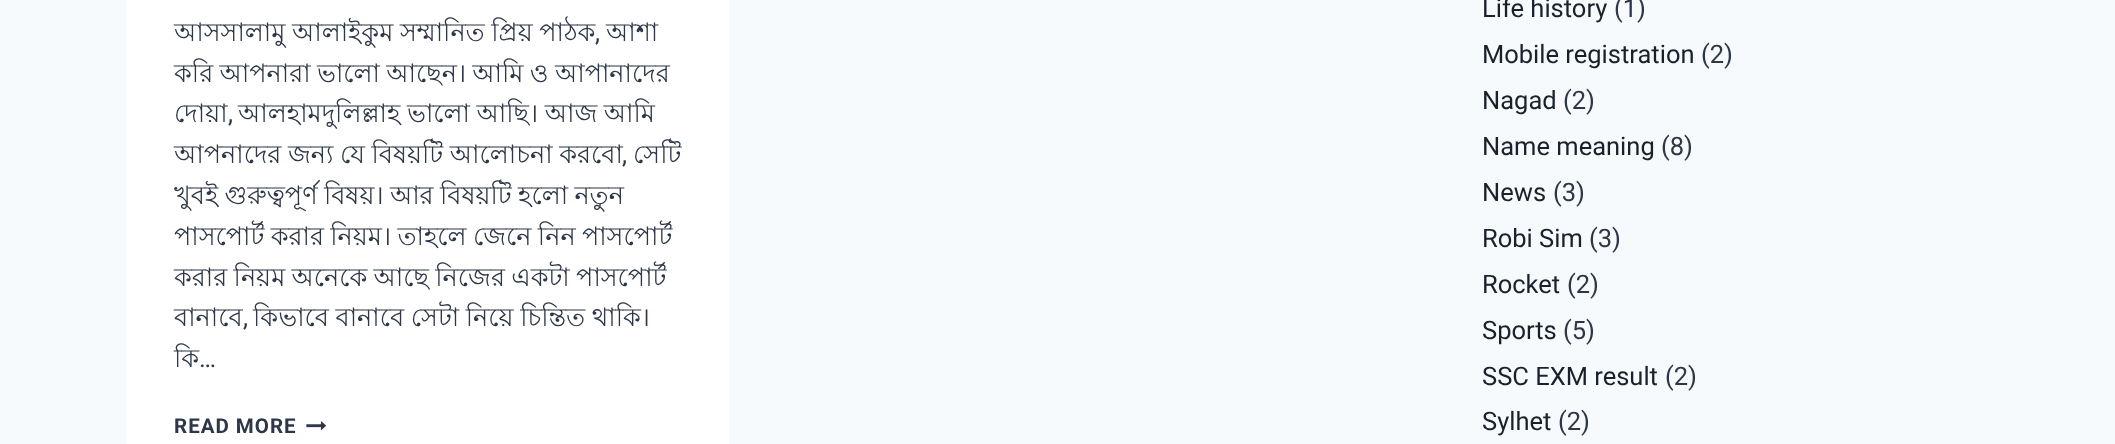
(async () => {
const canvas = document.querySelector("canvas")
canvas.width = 2115
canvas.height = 444
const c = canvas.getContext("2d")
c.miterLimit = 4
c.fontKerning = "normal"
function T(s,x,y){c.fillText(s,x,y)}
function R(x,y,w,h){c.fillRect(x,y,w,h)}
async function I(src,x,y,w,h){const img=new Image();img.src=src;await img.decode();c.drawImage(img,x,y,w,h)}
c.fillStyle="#f7fafc"
R(0,0,2115,444)
c.fillStyle="#fff"
R(126,0,603,444)
c.wordSpacing="-0.5px"
c.font="25.5px Lohit Bengali"
c.fillStyle="#2d3748"
T("আসসালামু আলাইকুম সম্মানিত প্রিয় পাঠক",174,41)
c.wordSpacing="0px"
c.font="25.5px Roboto"
T(",",595,41)
c.font="25.5px Lohit Bengali"
T("আশা",606,41)
c.wordSpacing="-0.75px"
T("করি আপনারা ভালো আছেন। আমি ও আপানাদের",174,82)
c.wordSpacing="0px"
T("দোয়া",174,122)
c.font="25.5px Roboto"
T(",",228,122)
c.wordSpacing="-0.5px"
c.font="25.5px Lohit Bengali"
T("আলহামদুলিল্লাহ ভালো আছি। আজ আমি",238,122)
T("আপনাদের জন্য যে বিষয়টি আলোচনা করবো",174,163)
c.wordSpacing="0px"
c.font="25.5px Roboto"
T(",",622,163)
c.font="25.5px Lohit Bengali"
T("সেটি",633,163)
c.wordSpacing="-0.75px"
T("খুবই গুরুত্বপূর্ণ বিষয়। আর বিষয়টি হলো নতুন",174,204)
T("পাসপোর্ট করার নিয়ম। তাহলে জেনে নিন পাসপোর্ট",174,245)
T("করার নিয়ম অনেকে আছে নিজের একটা পাসপোর্ট",174,286)
c.wordSpacing="0px"
T("বানাবে",174,326)
c.font="25.5px Roboto"
T(",",243,326)
c.wordSpacing="-0.5px"
c.font="25.5px Lohit Bengali"
T("কিভাবে বানাবে সেটা নিয়ে চিন্তিত থাকি।",253,326)
c.wordSpacing="0px"
T("কি",174,367)
c.font="25.5px Roboto"
T("…",199,367)
c.letterSpacing="1px"
c.font="bold 20.5px Roboto"
T("READ MORE",174,433)
await I("1.png",306,421,20,9)
c.letterSpacing="0px"
c.font="25.5px Roboto"
c.fillStyle="#1a202c"
T("Life history",1482,17)
c.fillStyle="#2d3748"
T("(1)",1614,17)
c.fillStyle="#1a202c"
T("Mobile registration",1482,63)
c.fillStyle="#2d3748"
T("(2)",1701,63)
c.fillStyle="#1a202c"
T("Nagad",1482,109)
c.fillStyle="#2d3748"
T("(2)",1563,109)
c.fillStyle="#1a202c"
T("Name meaning",1482,155)
c.fillStyle="#2d3748"
T("(8)",1661,155)
c.fillStyle="#1a202c"
T("News",1482,201)
c.fillStyle="#2d3748"
T("(3)",1553,201)
c.fillStyle="#1a202c"
T("Robi Sim",1482,247)
c.fillStyle="#2d3748"
T("(3)",1589,247)
c.fillStyle="#1a202c"
T("Rocket",1482,293)
c.fillStyle="#2d3748"
T("(2)",1567,293)
c.fillStyle="#1a202c"
T("Sports",1482,339)
c.fillStyle="#2d3748"
T("(5)",1563,339)
c.fillStyle="#1a202c"
T("SSC EXM result",1482,385)
c.fillStyle="#2d3748"
T("(2)",1665,385)
c.fillStyle="#1a202c"
T("Sylhet",1482,430)
c.fillStyle="#2d3748"
T("(2)",1558,430)
})()
